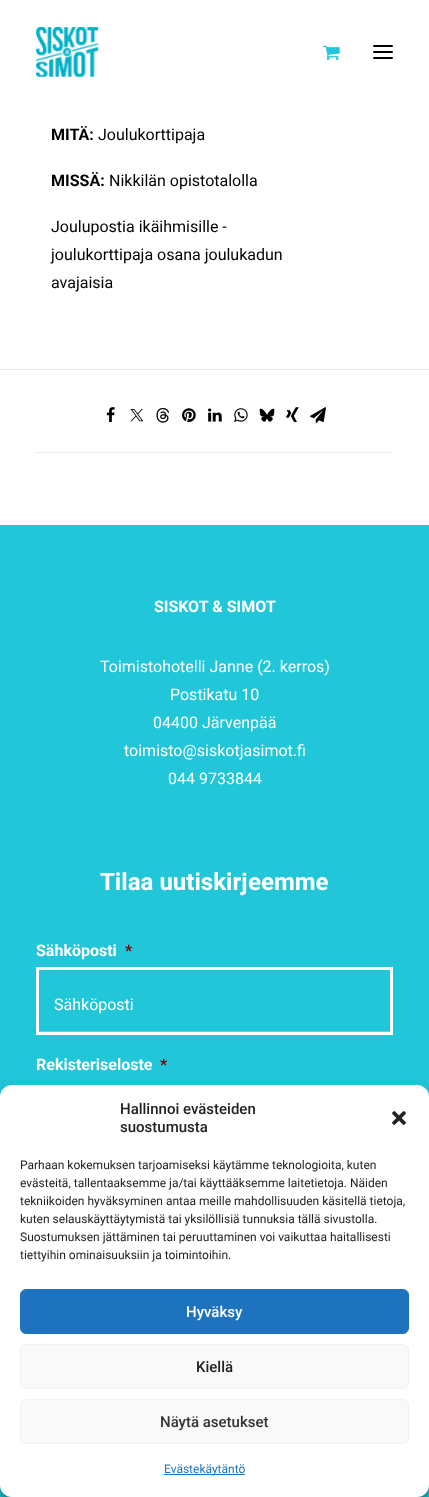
(async () => {
const canvas = document.querySelector("canvas")
canvas.width = 429
canvas.height = 1497
const c = canvas.getContext("2d")
c.miterLimit = 4
c.fontKerning = "normal"
function T(s,x,y){c.fillText(s,x,y)}
function R(x,y,w,h){c.fillRect(x,y,w,h)}
function Q(x,y,w,h,r){c.beginPath();c.roundRect(x,y,w,h,r);c.fill()}
async function I(src,x,y,w,h){const img=new Image();img.src=src;await img.decode();c.drawImage(img,x,y,w,h)}
c.fillStyle="#fff"
R(0,0,429,1497)
await I("1.png",36,27,63,50)
await I("2.png",323,45,17,15)
c.fillStyle="#000"
Q(373,51,20,2,1)
Q(373,45,20,2,1)
Q(373,57,20,2,1)
c.font="bold 16px Roboto"
T("MITÄ:",51,140)
c.font="16px Roboto"
T("Joulukorttipaja",98,140)
c.font="bold 16px Roboto"
T("MISSÄ:",51,186)
c.font="16px Roboto"
T("Nikkilän opistotalolla",109,186)
T("Joulupostia ikäihmisille -",51,232)
T("joulukorttipaja osana joulukadun",51,260)
T("avajaisia",51,288)
c.fillStyle="#eaeaea"
R(0,369,429,1)
R(36,452,357,1)
await I("3.png",106,407,9,15)
await I("4.png",130,409,14,13)
await I("5.png",156,407,14,16)
await I("6.png",182,408,14,14)
await I("7.png",208,408,14,14)
await I("8.png",234,408,14,14)
await I("9.png",259,408,16,14)
await I("10.png",286,407,13,15)
await I("11.png",310,407,16,17)
c.fillStyle="#22c6d9"
R(0,525,429,972)
c.font="bold 16px Heebo"
c.fillStyle="#fff"
T("SISKOT & SIMOT",154,612)
c.font="16px Roboto"
T("Toimistohotelli Janne (2. kerros)",100,672)
T("Postikatu 10",170,700)
T("04400 Järvenpää",153,728)
T("toimisto@siskotjasimot.fi",124,756)
T("044 9733844",168,784)
c.font="bold 24px Heebo"
T("Tilaa uutiskirjeemme",100,890)
c.font="bold 16px Roboto"
T("Sähköposti",36,956)
c.fillStyle="#790000"
T("*",125,956)
c.strokeStyle="#fff"
c.lineWidth=3
c.strokeRect(37.5,968.5,354,65)
c.fillStyle="#59d4e3"
R(39,1031,351,1)
c.font="16px Roboto"
c.fillStyle="#fff"
T("Sähköposti",54,1010)
c.font="bold 16px Roboto"
T("Rekisteriseloste",36,1070)
c.fillStyle="#790000"
T("*",160,1070)
c.fillStyle="#0000003b"
c.filter="blur(3px)"
c.beginPath()
c.roundRect(0,1091,429,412,12)
c.fill()
c.filter="none"
c.fillStyle="#00000030"
c.filter="blur(10px)"
c.beginPath()
c.roundRect(0,1095,429,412,12)
c.fill()
c.filter="none"
c.fillStyle="#fff"
Q(0,1085,429,412,12)
c.font="500 15px Roboto"
c.fillStyle="#222"
T("Hallinnoi evästeiden",120,1114)
T("suostumusta",120,1132)
await I("12.png",392,1111,14,14)
c.font="12px Roboto"
T("Parhaan kokemuksen tarjoamiseksi käytämme teknologioita, kuten",20,1169)
T("evästeitä, tallentaaksemme ja/tai käyttääksemme laitetietoja. Näiden",20,1187)
T("tekniikoiden hyväksyminen antaa meille mahdollisuuden käsitellä tietoja,",20,1205)
T("kuten selauskäyttäytymistä tai yksilöllisiä tunnuksia tällä sivustolla.",20,1223)
T("Suostumuksen jättäminen tai peruuttaminen voi vaikuttaa haitallisesti",20,1241)
T("tiettyihin ominaisuuksiin ja toimintoihin.",20,1259)
c.fillStyle="#1e73be"
c.beginPath()
c.roundRect(20.5,1289.5,388,44,5.5)
c.fill()
c.strokeStyle="#1e73be"
c.lineWidth=1
c.stroke()
c.font="500 15px Roboto"
c.fillStyle="#fff"
T("Hyväksy",186,1317)
c.fillStyle="#f9f9f9"
c.beginPath()
c.roundRect(20.5,1344.5,388,44,5.5)
c.fill()
c.strokeStyle="#f2f2f2"
c.stroke()
c.fillStyle="#222"
T("Kiellä",196,1372)
c.fillStyle="#f9f9f9"
c.beginPath()
c.roundRect(20.5,1399.5,388,44,5.5)
c.fill()
c.stroke()
c.fillStyle="#333"
T("Näytä asetukset",160,1427)
c.fillStyle="#1e73be"
R(164,1474,81,1)
c.font="12px Roboto"
T("Evästekäytäntö",164,1473)
})()
